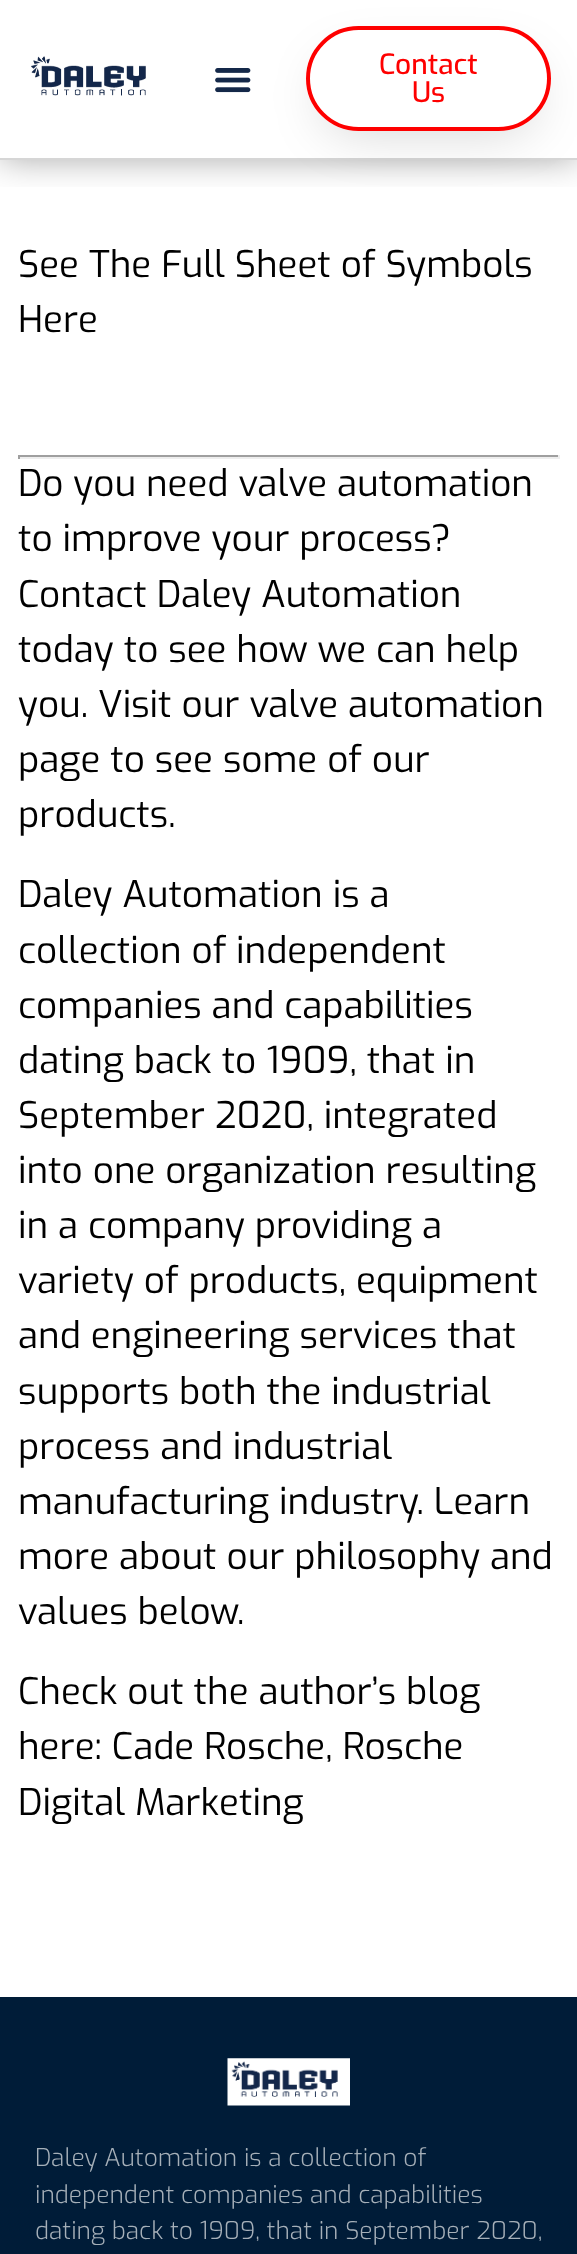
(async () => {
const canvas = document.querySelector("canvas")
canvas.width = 577
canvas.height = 2254
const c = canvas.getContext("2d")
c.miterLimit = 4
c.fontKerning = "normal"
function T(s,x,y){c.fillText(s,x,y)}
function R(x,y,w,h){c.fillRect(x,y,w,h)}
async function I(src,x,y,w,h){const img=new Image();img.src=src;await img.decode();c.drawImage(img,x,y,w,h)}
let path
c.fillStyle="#fff"
R(0,0,577,2254)
c.save()
c.beginPath()
c.rect(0,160,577,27)
c.clip()
c.fillStyle="#00000059"
c.filter="blur(17.5px)"
c.beginPath()
c.rect(0,0,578,159)
c.fill()
c.filter="none"
c.restore()
c.fillStyle="#d6d6d6"
R(0,158,577,2)
await I("1.png",31,56,115,40)
await I("2.png",215,68,36,25)
c.save()
path = new Path2D("M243 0h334v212h-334zm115.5 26h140c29 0 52.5 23.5 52.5 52.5c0 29-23.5 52.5-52.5 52.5h-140c-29 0-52.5-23.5-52.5-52.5c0-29 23.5-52.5 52.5-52.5z")
c.clip(path,"evenodd")
c.fillStyle="#00000029"
c.filter="blur(26px)"
c.beginPath()
c.roundRect(322,60,214,73,36.5)
c.fill()
c.filter="none"
c.restore()
c.beginPath()
c.roundRect(308,28,241,101,50.5)
c.strokeStyle="#fe0000"
c.lineWidth=4
c.stroke()
c.font="500 28px Exo"
c.fillStyle="#fe0000"
T("Contact",379,74)
T("Us",412,102)
c.font="36.75px Exo"
c.fillStyle="#000"
T("See The Full Sheet of Symbols",18,277)
T("Here",18,332)
c.fillStyle="#9f9f9f"
R(18,455,542,2)
c.fillStyle="#eee"
R(558,455,2,4)
R(18,457,542,2)
c.fillStyle="#9f9f9f"
R(18,455,2,4)
c.fillStyle="#000"
T("Do you need valve automation",18,496)
T("to improve your process?",18,551)
T("Contact Daley Automation",18,607)
T("today to see how we can help",18,662)
T("you. Visit our valve automation",18,717)
T("page to see some of our",18,772)
T("products.",18,827)
T("Daley Automation is a",18,907)
T("collection of independent",18,963)
T("companies and capabilities",18,1018)
T("dating back to 1909, that in",18,1073)
T("September 2020, integrated",18,1128)
T("into one organization resulting",18,1183)
T("in a company providing a",18,1238)
T("variety of products, equipment",18,1293)
T("and engineering services that",18,1348)
T("supports both the industrial",18,1404)
T("process and industrial",18,1459)
T("manufacturing industry. Learn",18,1514)
T("more about our philosophy and",18,1569)
T("values below.",18,1624)
T("Check out the author’s blog",18,1704)
T("here: Cade Rosche, Rosche",18,1759)
T("Digital Marketing",18,1815)
c.fillStyle="#001c38"
R(0,1997,577,257)
await I("3.png",227,2058,123,48)
c.font="300 24.5px Exo"
c.fillStyle="#a6b0b9"
T("Daley Automation is a collection of",35,2166)
T("independent companies and capabilities",35,2203)
T("dating back to 1909, that in September 2020,",35,2239)
})()
